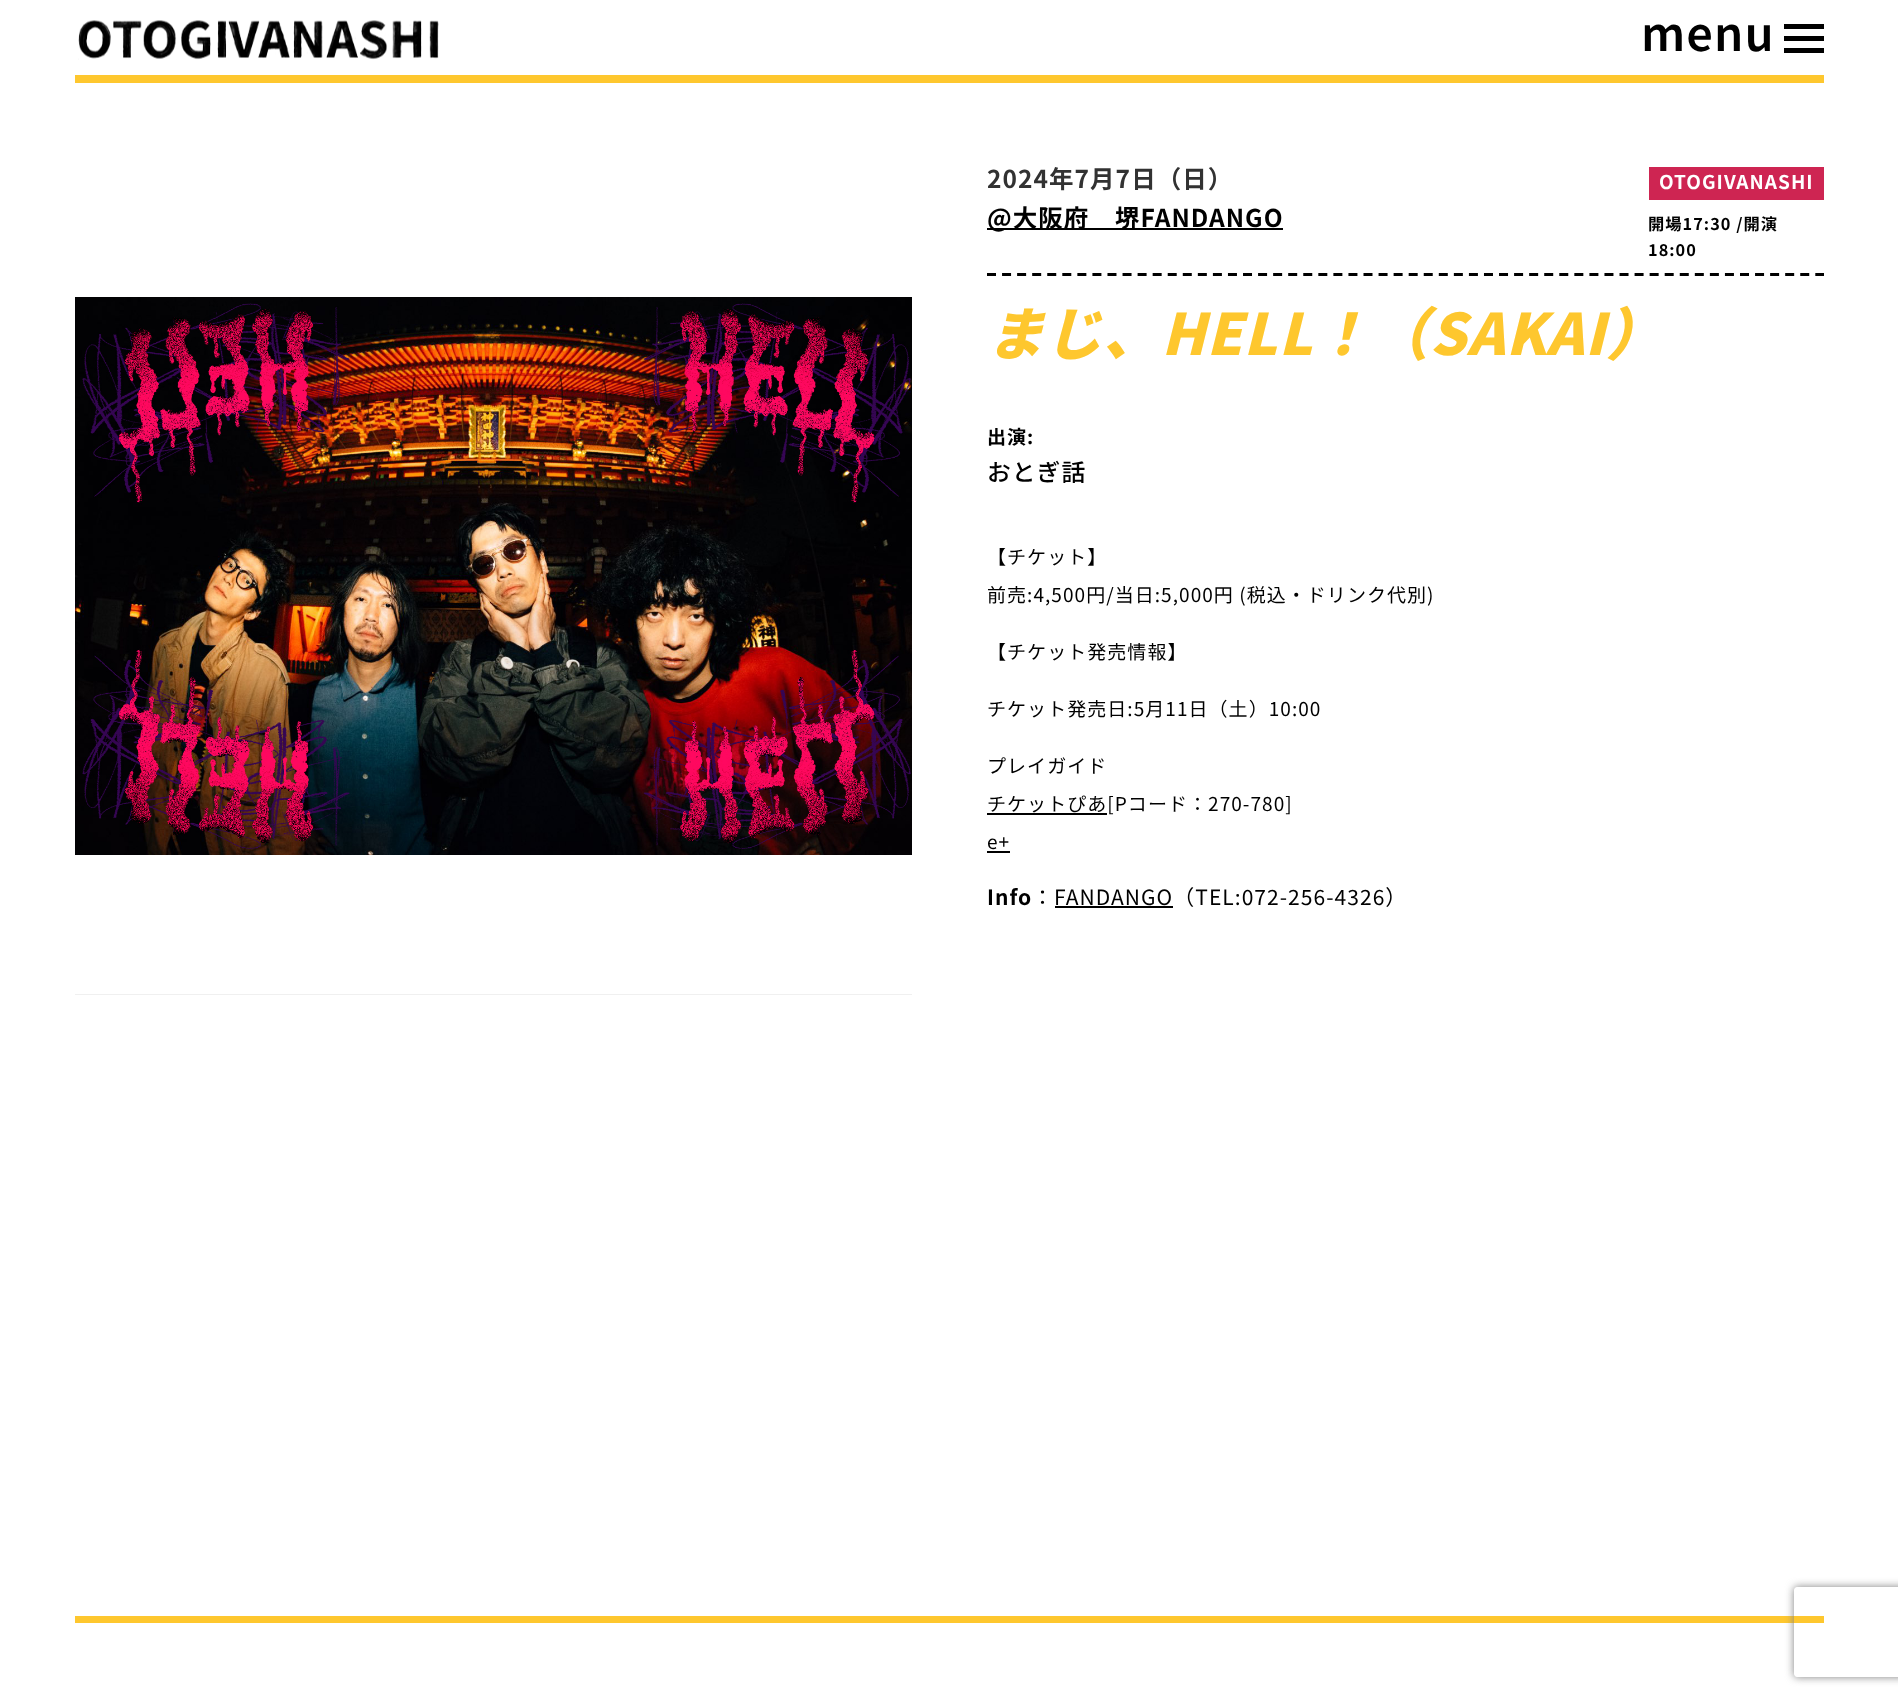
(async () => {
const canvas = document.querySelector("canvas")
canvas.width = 1898
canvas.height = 1698
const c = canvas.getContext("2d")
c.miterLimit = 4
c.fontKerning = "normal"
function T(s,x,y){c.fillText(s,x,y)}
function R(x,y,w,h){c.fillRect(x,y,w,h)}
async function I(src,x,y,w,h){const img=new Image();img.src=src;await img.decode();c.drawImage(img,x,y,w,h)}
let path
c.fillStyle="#fff"
R(0,0,1898,1698)
await I("1.png",78,20,361,40)
c.letterSpacing="1.05px"
c.font="600 52.5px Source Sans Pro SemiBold"
c.fillStyle="#000"
T("menu",1641,51)
R(1784,24,40,5)
R(1784,36,40,5)
R(1784,48,40,5)
c.fillStyle="#fec72e"
R(75,75,1749,8)
R(75,1616,1749,7)
c.fillStyle="#e1e1e1"
R(75,994,837,1)
await I("2.png",75,158,837,837)
path = new Path2D("M987 274.5h837")
c.strokeStyle="#000"
c.lineWidth=3
c.setLineDash([9,6.06])
c.stroke(path)
c.font="bold 24.5px Noto Sans JP"
c.fillStyle="#323232"
T("2024年7月7日（日）",987,188)
c.fillStyle="#000"
R(987,228,296,2)
T("@大阪府　堺FANDANGO",987,227)
c.fillStyle="#ce2552"
R(1649,167,175,33)
c.font="bold 19px Noto Sans JP"
c.fillStyle="#fff"
T("OTOGIVANASHI",1659,189)
c.font="bold 16.25px Noto Sans JP"
c.fillStyle="#000"
T("開場17:30 /開演",1648,230)
T("18:00",1648,256)
c.font="italic 900 57px Noto Sans JP"
c.fillStyle="#fec72e"
T("まじ、HELL！（SAKAI）",987,355)
c.font="bold 19px Noto Sans JP"
c.fillStyle="#000"
T("出演:",987,444)
c.font="500 23.75px Noto Sans JP"
T("おとぎ話",987,481)
c.font="19px Noto Sans JP"
T("【チケット】",987,564)
T("前売:4,500円/当日:5,000円 (税込・ドリンク代別)",987,602)
T("【チケット発売情報】",987,659)
T("チケット発売日:5月11日（土）10:00",987,716)
T("プレイガイド",987,773)
R(987,813,120,2)
T("チケットぴあ[Pコード：270-780]",987,811)
T("e+",987,849)
R(987,851,23,2)
c.font="bold 21px Noto Sans JP"
T("Info",987,905)
c.font="21px Noto Sans JP"
T("：FANDANGO（TEL:072-256-4326）",1032,905)
R(1055,906,118,2)
c.save()
path = new Path2D("M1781 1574h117v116h-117zm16 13h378c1.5 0 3 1.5 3 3v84c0 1.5-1.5 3-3 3h-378c-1.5 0-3-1.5-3-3v-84c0-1.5 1.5-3 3-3z")
c.clip(path,"evenodd")
c.fillStyle="#808080"
c.filter="blur(4px)"
c.beginPath()
c.roundRect(1794,1587,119,90,3)
c.fill()
c.filter="none"
c.restore()
})()
